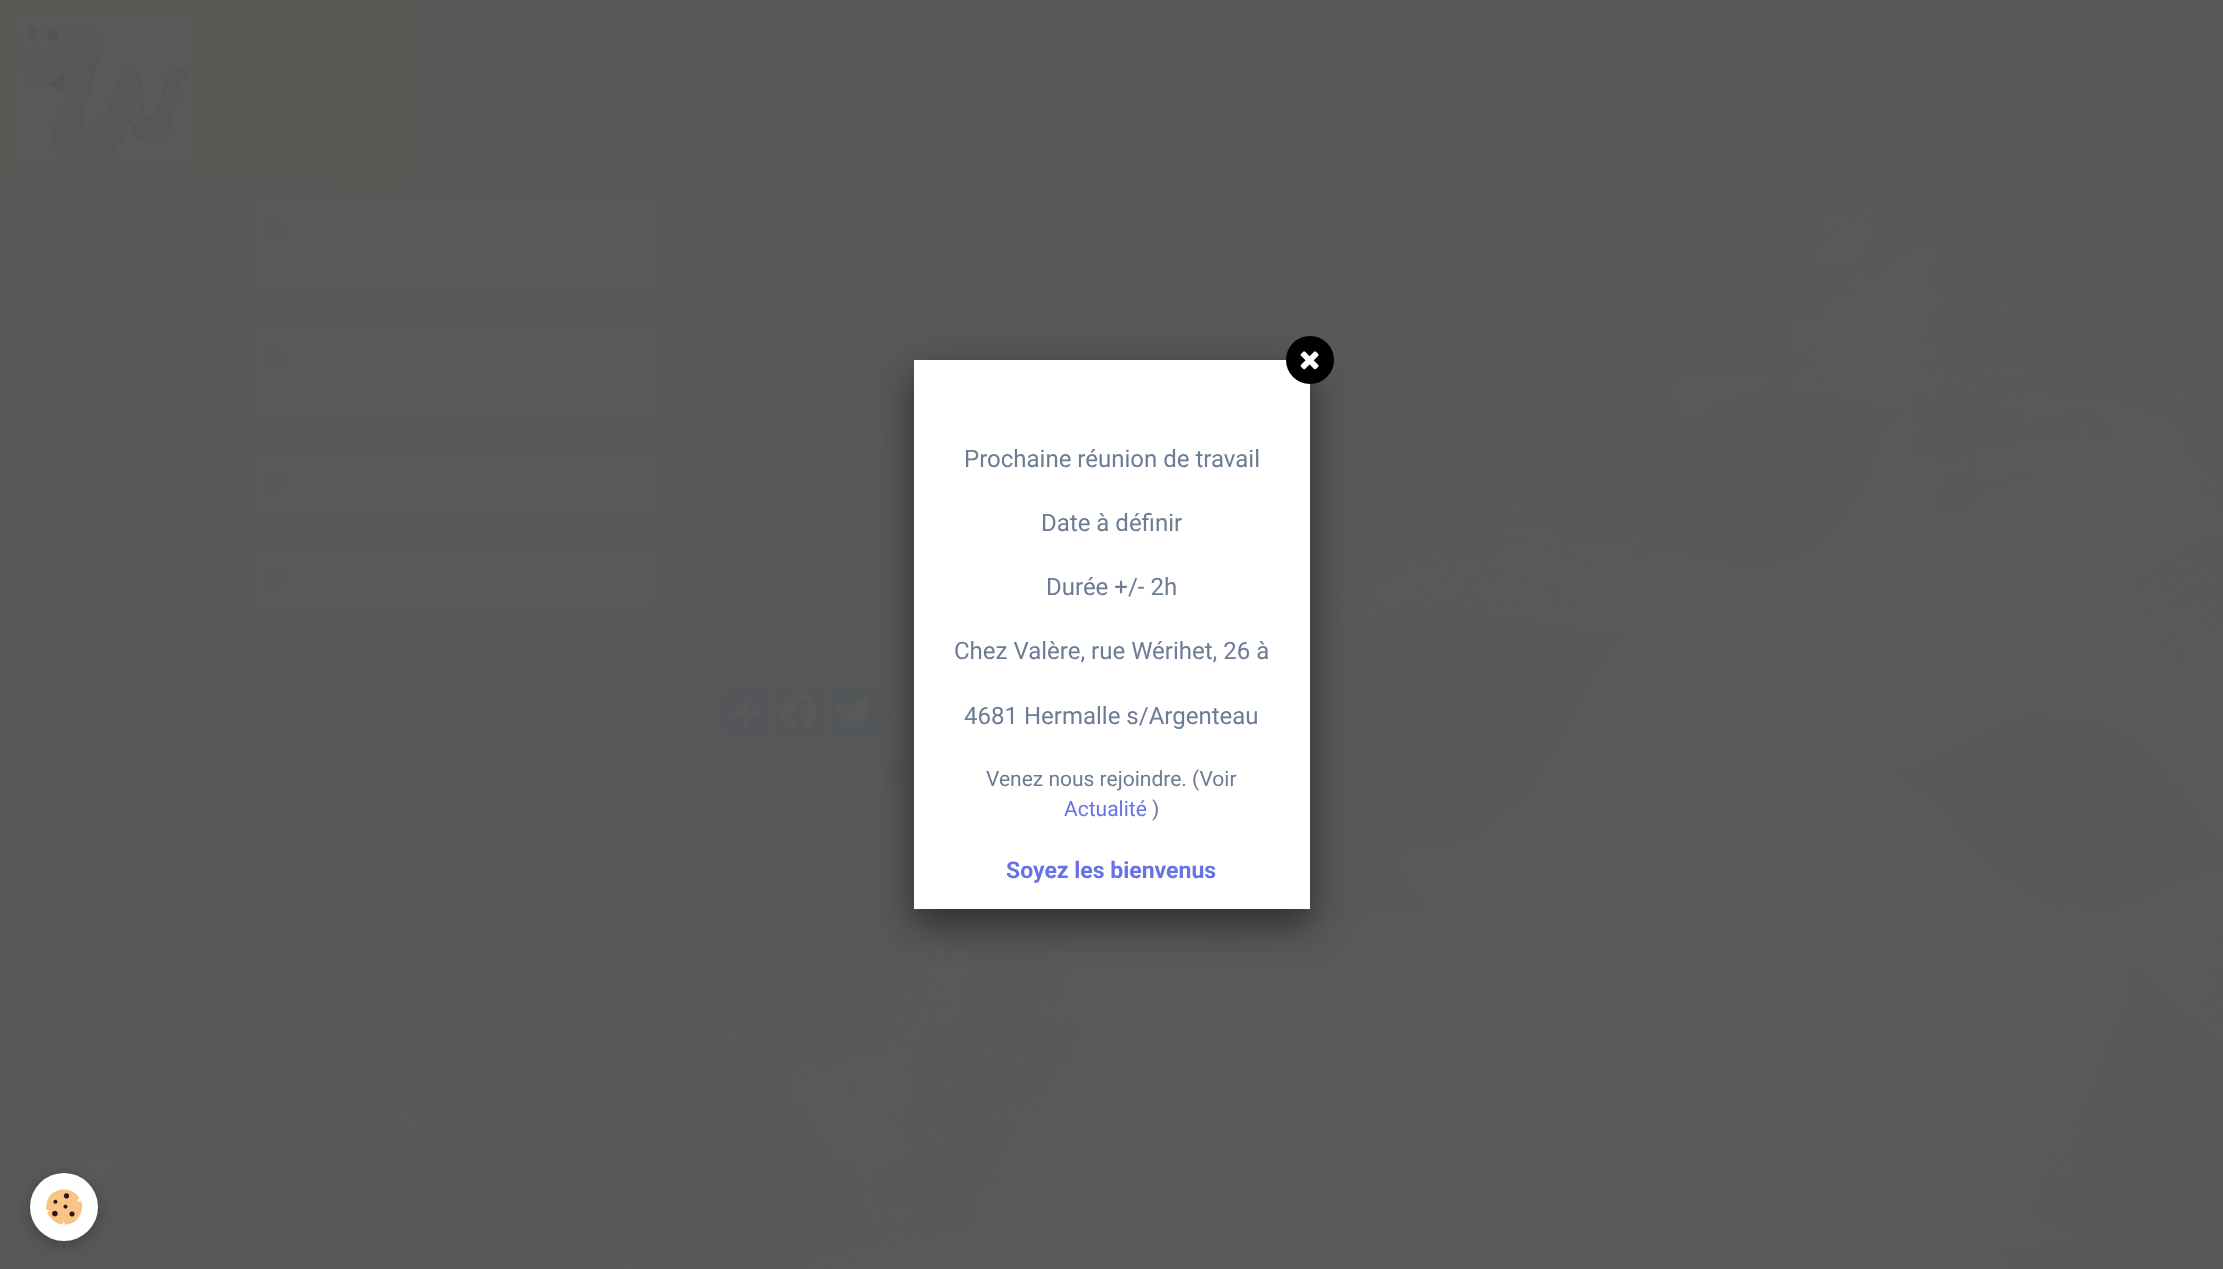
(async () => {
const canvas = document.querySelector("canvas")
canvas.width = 2223
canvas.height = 1269
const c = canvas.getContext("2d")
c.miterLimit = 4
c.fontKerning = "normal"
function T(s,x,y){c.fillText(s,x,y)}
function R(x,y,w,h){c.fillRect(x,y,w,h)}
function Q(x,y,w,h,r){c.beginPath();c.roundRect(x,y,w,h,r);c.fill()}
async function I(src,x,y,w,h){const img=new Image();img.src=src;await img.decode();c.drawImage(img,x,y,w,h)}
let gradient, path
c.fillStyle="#fff"
R(0,0,2223,1269)
await I("1.png",0,180,2223,1089)
c.fillStyle="#585754"
path = new Path2D("M0-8h2223v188c0 4.5-3.5 8-8 8h-2207c-4.5 0-8-3.5-8-8z")
c.fill(path)
gradient = c.createLinearGradient(0,68,2223,67)
gradient.addColorStop(0,"#58585900")
gradient.addColorStop(1,"#585859")
c.fillStyle = gradient
path = new Path2D("M0-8h2223v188c0 4.5-3.5 8-8 8h-2207c-4.5 0-8-3.5-8-8z")
c.fill(path)
await I("2.png",15,15,180,150)
c.fillStyle="#595657"
R(0,180,337,8)
c.fillStyle="#595959"
Q(249,198,408,96,8)
await I("3.png",265,222,17,17)
Q(249,324,408,96,8)
await I("3.png",265,348,17,17)
Q(249,450,408,65,8)
await I("3.png",265,474,17,17)
Q(249,545,408,64,8)
await I("4.png",265,569,17,16)
await I("3.png",265,663,17,17)
await I("4.png",265,758,17,16)
await I("3.png",265,852,17,17)
await I("4.png",265,947,17,16)
await I("3.png",265,1041,17,17)
await I("4.png",265,1136,17,16)
await I("3.png",265,1230,17,17)
await I("5.png",718,606,17,18)
c.fillStyle="#545659"
Q(722,689,48,48,6)
c.fillStyle="#595959"
R(743,699,6,27)
R(732,710,27,6)
c.fillStyle="#545659"
Q(776,689,48,48,6)
await I("6.png",781,694,37,37)
c.fillStyle="#545759"
Q(830,689,48,48,6)
await I("7.png",835,697,37,31)
await I("8.png",891,701,23,23)
await I("9.png",721,755,34,33)
await I("10.png",760,755,34,33)
await I("10.png",799,755,34,33)
await I("11.png",838,755,34,33)
await I("12.png",879,755,34,33)
c.fillStyle="#00000080"
c.filter="blur(19px)"
c.beginPath()
c.rect(914,375,396,549)
c.fill()
c.filter="none"
c.fillStyle="#fff"
R(914,360,396,549)
c.fillStyle="#000"
c.beginPath()
c.arc(1310,360,24,0,7)
c.fill()
await I("13.png",1300,351,19,19)
c.font="24px Roboto"
c.fillStyle="#6b7c93"
T("Prochaine réunion de travail",964,467)
T("Date à définir",1041,531)
T("Durée +/- 2h",1046,595)
T("Chez Valère, rue Wérihet, 26 à",954,659)
T("4681 Hermalle s/Argenteau",964,724)
c.font="21px Roboto"
T("Venez nous rejoindre. (Voir",986,786)
c.fillStyle="#6772e5"
T("Actualité",1064,816)
c.fillStyle="#6b7c93"
T(")",1152,816)
c.font="bold 23px Roboto"
c.fillStyle="#6772e5"
T("Soyez les bienvenus",1006,878)
c.fillStyle="#0000003d"
c.filter="blur(7.5px)"
c.beginPath()
c.roundRect(30,1178,68,67,33.5)
c.fill()
c.filter="none"
c.fillStyle="#fff"
c.beginPath()
c.arc(64,1207,34,0,7)
c.fill()
await I("14.png",46,1189,37,36)
})()
